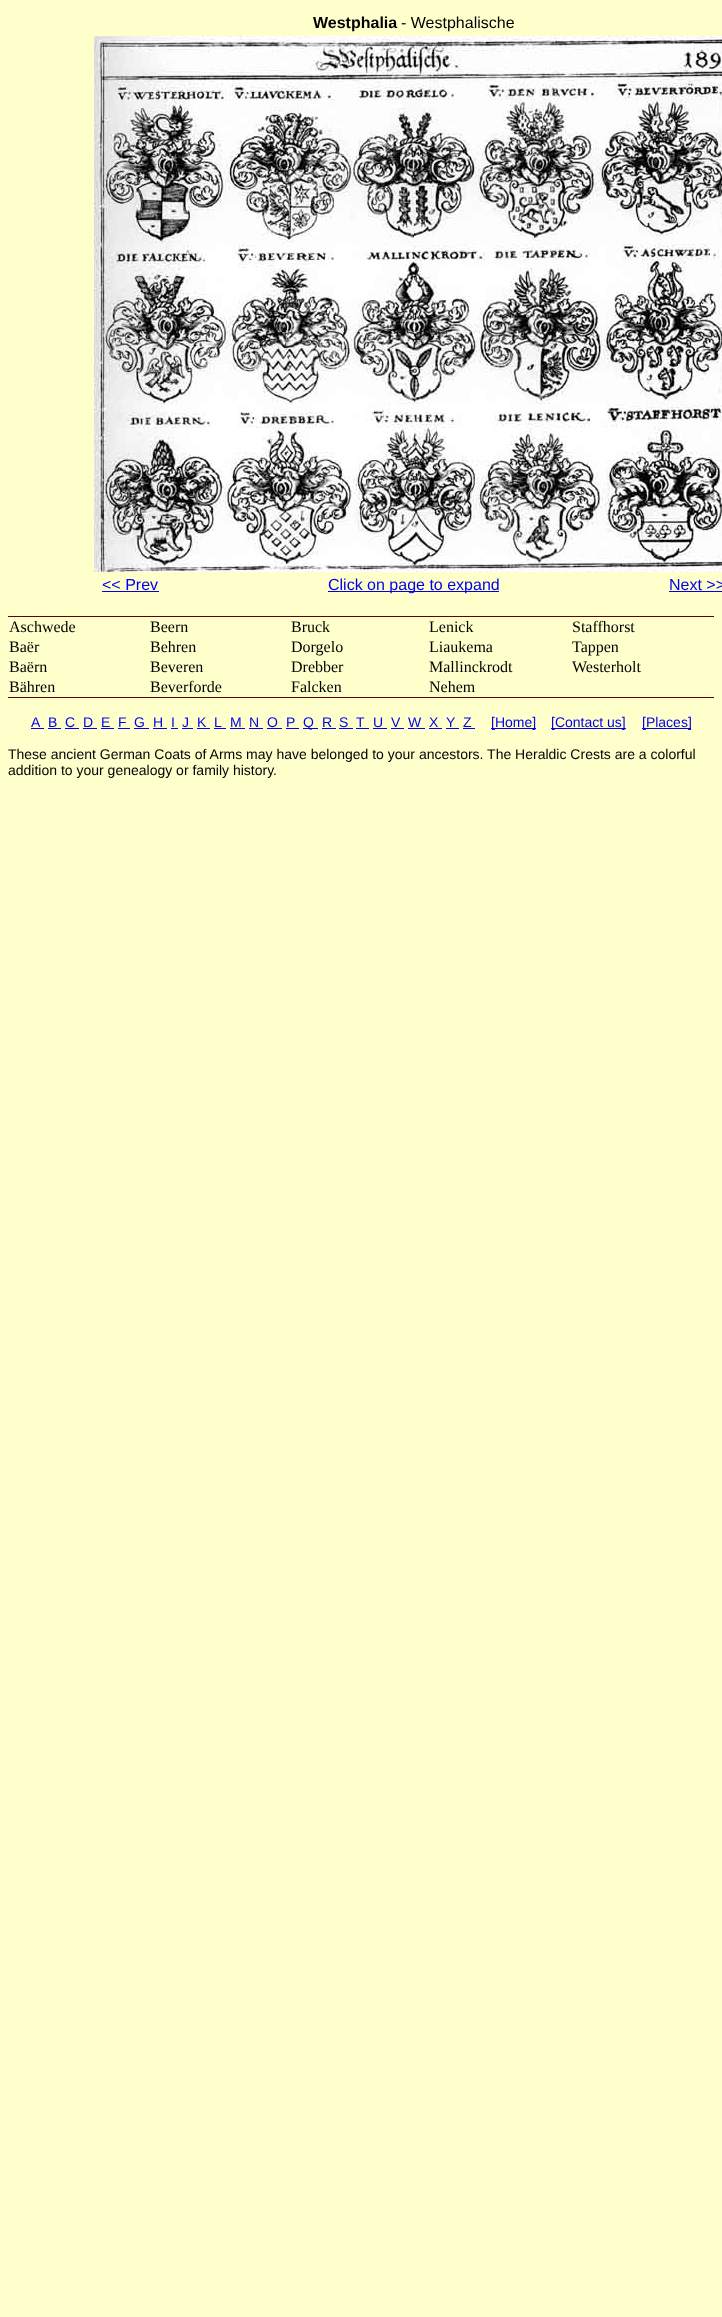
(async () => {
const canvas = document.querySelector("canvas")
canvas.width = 722
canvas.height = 2317
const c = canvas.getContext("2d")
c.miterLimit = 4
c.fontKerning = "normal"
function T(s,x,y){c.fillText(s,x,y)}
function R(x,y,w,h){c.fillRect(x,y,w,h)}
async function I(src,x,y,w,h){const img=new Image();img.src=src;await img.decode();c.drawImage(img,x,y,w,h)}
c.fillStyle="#ffc"
R(0,0,722,2317)
c.font="bold 16px Liberation Sans"
c.fillStyle="#000"
T("Westphalia",313,28)
c.font="16px Liberation Sans"
T("- Westphalische",401,28)
await I("1.png",94,36,628,536)
c.fillStyle="#00e"
T("<< Prev",102,590)
R(102,591,57,1)
R(328,591,171,1)
T("Click on page to expand",328,590)
T("Next >>",669,590)
R(669,591,53,1)
c.fillStyle="#600"
R(8,616,706,1)
R(8,697,706,1)
c.font="16px Liberation Serif"
c.fillStyle="#000"
T("Aschwede",9,632)
T("Beern",150,632)
T("Bruck",291,632)
T("Lenick",429,632)
T("Staffhorst",572,632)
T("Baër",9,652)
T("Behren",150,652)
T("Dorgelo",291,652)
T("Liaukema",429,652)
T("Tappen",572,652)
T("Baërn",9,672)
T("Beveren",150,672)
T("Drebber",291,672)
T("Mallinckrodt",429,672)
T("Westerholt",572,672)
T("Bähren",9,692)
T("Beverforde",150,692)
T("Falcken",291,692)
T("Nehem",429,692)
c.font="14px Liberation Sans"
c.fillStyle="#00e"
T("A",31,727)
R(31,728,13,1)
T("B",48,727)
R(48,728,13,1)
T("C",65,727)
R(65,728,14,1)
T("D",83,727)
R(83,728,14,1)
T("E",101,727)
R(101,728,13,1)
T("F",118,727)
R(118,728,12,1)
T("G",134,727)
R(134,728,15,1)
T("H",153,727)
R(153,728,14,1)
T("I",171,727)
R(171,728,7,1)
T("J",182,727)
R(182,728,11,1)
T("K",197,727)
R(197,728,13,1)
T("L",214,727)
R(214,728,12,1)
T("M",230,727)
R(230,728,15,1)
T("N",249,727)
R(249,728,14,1)
T("O",267,727)
R(267,728,15,1)
T("P",286,727)
R(286,728,13,1)
R(303,728,15,1)
T("Q",303,727)
T("R",322,727)
R(322,728,14,1)
T("S",339,727)
R(339,728,14,1)
T("T",356,727)
R(356,728,13,1)
T("U",373,727)
R(373,728,14,1)
T("V",391,727)
R(391,728,13,1)
T("W",408,727)
R(408,728,17,1)
T("X",429,727)
R(429,728,13,1)
T("Y",446,727)
R(446,728,13,1)
T("Z",463,727)
R(463,728,12,1)
R(491,728,45,1)
T("[Home]",491,727)
R(551,728,75,1)
T("[Contact us]",551,727)
R(642,728,49,1)
T("[Places]",642,727)
c.fillStyle="#000"
T("These ancient German Coats of Arms may have belonged to your ancestors. The Heraldic Crests are a colorful",8,759)
T("addition to your genealogy or family history.",8,775)
})()
